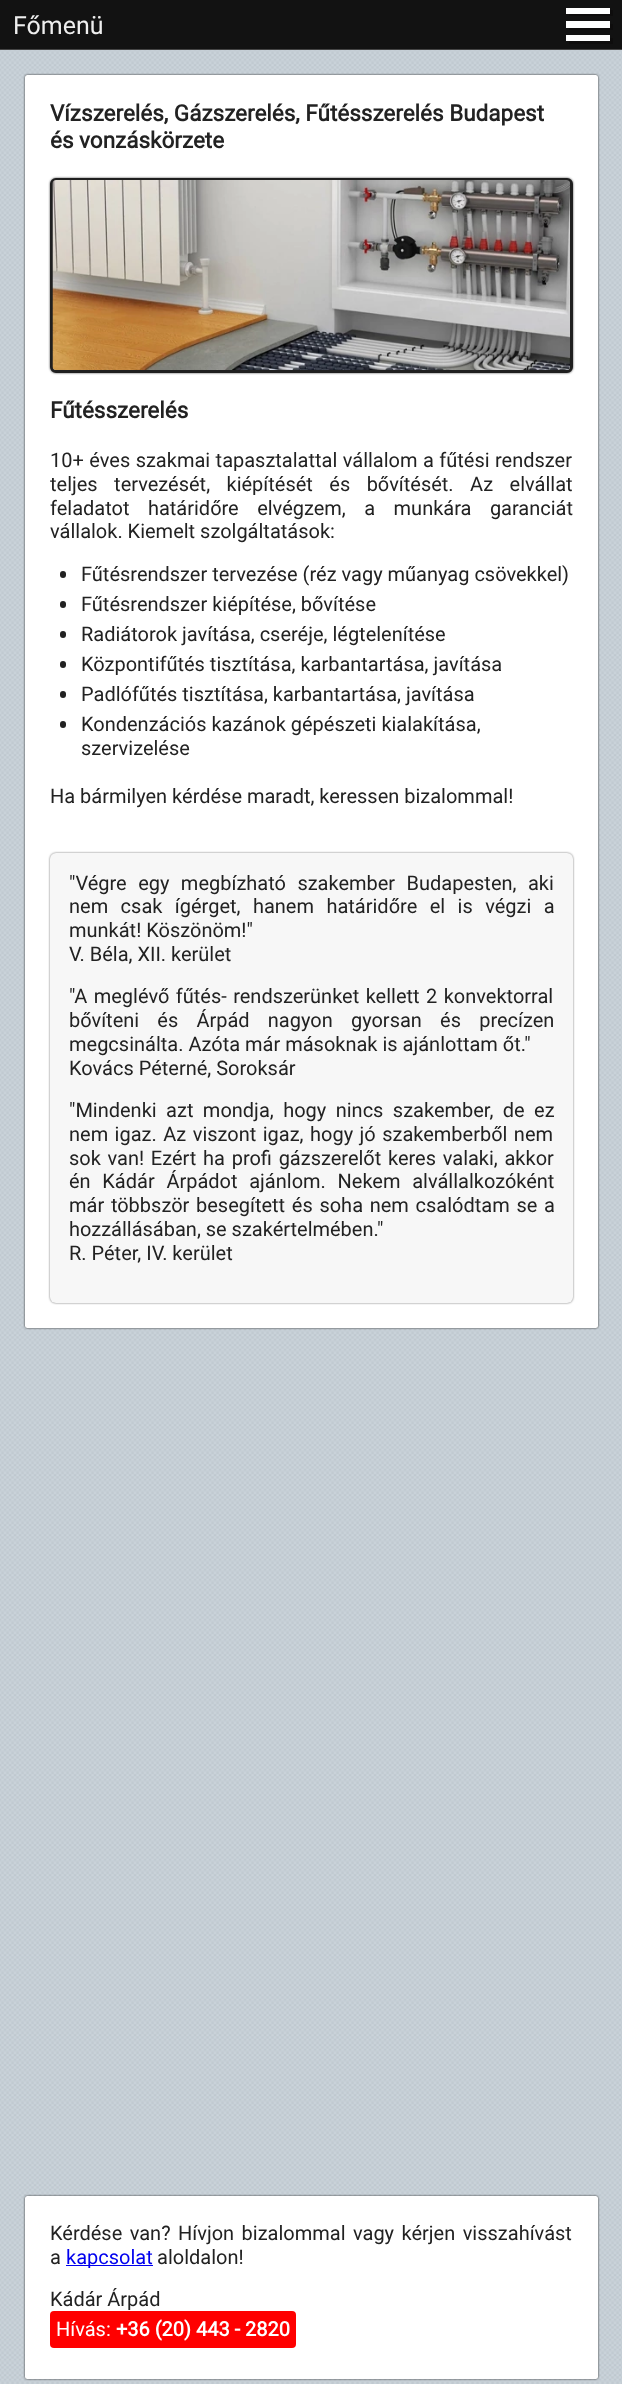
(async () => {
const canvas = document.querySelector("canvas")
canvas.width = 622
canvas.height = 2384
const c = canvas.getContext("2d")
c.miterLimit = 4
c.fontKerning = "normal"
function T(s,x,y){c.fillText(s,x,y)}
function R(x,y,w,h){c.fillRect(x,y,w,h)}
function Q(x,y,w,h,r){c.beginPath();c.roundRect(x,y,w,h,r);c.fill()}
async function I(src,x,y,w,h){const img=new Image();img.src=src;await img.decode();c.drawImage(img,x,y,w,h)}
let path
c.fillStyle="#fff"
R(0,0,622,2384)
await I("1.png",0,50,622,2334)
c.fillStyle="#121212"
R(0,0,622,49)
c.fillStyle="#444"
R(0,49,622,1)
c.font="25px Roboto"
c.fillStyle="#eee"
T("Főmenü",13,34)
c.fillStyle="#0e0d0d"
path = new Path2D("M569 14v2h44v-6h-3v4z")
c.fill(path)
c.fillStyle="#fff"
R(566,8,44,6)
c.fillStyle="#0e0d0d"
path = new Path2D("M569 28v2h44v-6h-3v4z")
c.fill(path)
c.fillStyle="#fff"
R(566,21,44,7)
c.fillStyle="#0e0d0d"
path = new Path2D("M569 41v3h44v-6h-3v3z")
c.fill(path)
c.fillStyle="#fff"
R(566,35,44,6)
c.fillStyle="#333"
c.filter="blur(1px)"
c.beginPath()
c.roundRect(25,75,573,1253,2.5)
c.fill()
c.filter="none"
c.fillStyle="#fff"
Q(25,75,573,1253,2.5)
c.font="bold 22.5px Roboto"
c.fillStyle="#222"
T("Vízszerelés, Gázszerelés, Fűtésszerelés Budapest",50,121)
T("és vonzáskörzete",50,148)
c.fillStyle="#555"
c.filter="blur(1px)"
c.beginPath()
c.roundRect(50,178,523,195,6)
c.fill()
c.filter="none"
c.fillStyle="#c7c7c7"
c.beginPath()
c.roundRect(51.5,179.5,520,192,4.5)
c.fill()
c.strokeStyle="#1f1f1f"
c.lineWidth=3
c.stroke()
await I("2.png",52,180,518,190)
c.fillStyle="#222"
T("Fűtésszerelés",50,418)
c.wordSpacing="0.5px"
c.font="20px Roboto"
T("10+ éves szakmai tapasztalattal vállalom a fűtési rendszer",50,467)
c.wordSpacing="11.5px"
T("teljes tervezését, kiépítését és bővítését. Az elvállat",50,491)
c.wordSpacing="13.5px"
T("feladatot határidőre elvégzem, a munkára garanciát",50,515)
c.wordSpacing="0px"
T("vállalok. Kiemelt szolgáltatások:",50,538)
Q(60,571,6,7,3)
T("Fűtésrendszer tervezése (réz vagy műanyag csövekkel)",81,581)
Q(60,601,6,7,3)
T("Fűtésrendszer kiépítése, bővítése",81,611)
Q(60,631,6,7,3)
T("Radiátorok javítása, cseréje, légtelenítése",81,641)
Q(60,661,6,7,3)
T("Központifűtés tisztítása, karbantartása, javítása",81,671)
Q(60,691,6,7,3)
T("Padlófűtés tisztítása, karbantartása, javítása",81,701)
Q(60,721,6,7,3)
T("Kondenzációs kazánok gépészeti kialakítása,",81,731)
T("szervizelése",81,755)
T("Ha bármilyen kérdése maradt, keressen bizalommal!",50,803)
c.fillStyle="#777"
c.filter="blur(1px)"
c.beginPath()
c.roundRect(50,853,523,450,6)
c.fill()
c.filter="none"
c.fillStyle="#f7f7f7"
Q(50,853,523,450,6)
c.wordSpacing="6.5px"
c.fillStyle="#222"
T("\"Végre egy megbízható szakember Budapesten, aki",69,890)
c.wordSpacing="7.5px"
T("nem csak ígérget, hanem határidőre el is végzi a",69,913)
c.wordSpacing="0px"
T("munkát! Köszönöm!\"",69,937)
T("V. Béla, XII. kerület",69,961)
c.wordSpacing="1.5px"
T("\"A meglévő fűtés- rendszerünket kellett 2 konvektorral",69,1003)
c.wordSpacing="13.25px"
T("bővíteni és Árpád nagyon gyorsan és precízen",69,1027)
c.wordSpacing="0px"
T("megcsinálta. Azóta már másoknak is ajánlottam őt.\"",69,1051)
T("Kovács Péterné, Soroksár",69,1075)
c.wordSpacing="4.5px"
T("\"Mindenki azt mondja, hogy nincs szakember, de ez",69,1117)
c.wordSpacing="1.5px"
T("nem igaz. Az viszont igaz, hogy jó szakemberből nem",69,1141)
c.wordSpacing="1.75px"
T("sok van! Ezért ha profi gázszerelőt keres valaki, akkor",69,1165)
c.wordSpacing="6.75px"
T("én Kádár Árpádot ajánlom. Nekem alvállalkozóként",69,1188)
c.wordSpacing="1.75px"
T("már többször besegített és soha nem csalódtam se a",69,1212)
c.wordSpacing="0px"
T("hozzállásában, se szakértelmében.\"",69,1236)
T("R. Péter, IV. kerület",69,1260)
c.fillStyle="#333"
c.filter="blur(1px)"
c.beginPath()
c.roundRect(25,2196,573,183,2.5)
c.fill()
c.filter="none"
c.fillStyle="#fff"
Q(25,2196,573,183,2.5)
c.wordSpacing="2.5px"
c.fillStyle="#222"
T("Kérdése van? Hívjon bizalommal vagy kérjen visszahívást",50,2240)
c.wordSpacing="0px"
T("a",50,2264)
c.fillStyle="#00e"
R(66,2265,87,1)
T("kapcsolat",66,2264)
c.fillStyle="#222"
T("aloldalon!",157,2264)
T("Kádár Árpád",50,2306)
c.fillStyle="#f00"
Q(50,2311,246,37,4)
c.fillStyle="#fff"
T("Hívás:",56,2336)
c.font="bold 20px Roboto"
T("+36 (20) 443 - 2820",116,2336)
})()
